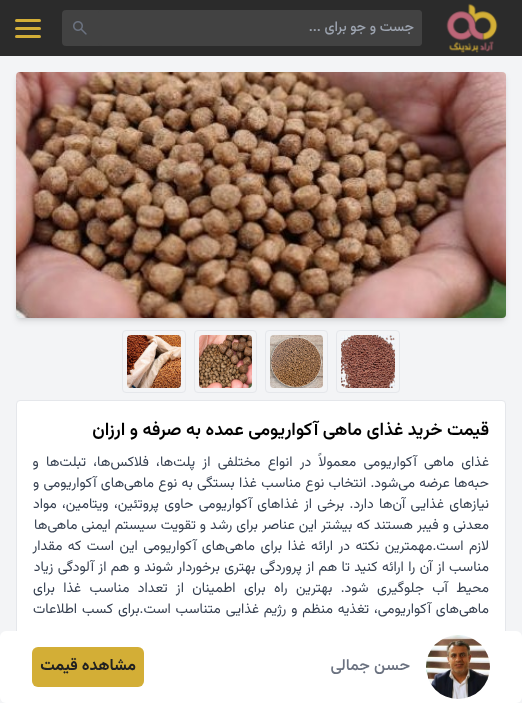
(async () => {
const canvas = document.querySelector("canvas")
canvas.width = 522
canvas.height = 703
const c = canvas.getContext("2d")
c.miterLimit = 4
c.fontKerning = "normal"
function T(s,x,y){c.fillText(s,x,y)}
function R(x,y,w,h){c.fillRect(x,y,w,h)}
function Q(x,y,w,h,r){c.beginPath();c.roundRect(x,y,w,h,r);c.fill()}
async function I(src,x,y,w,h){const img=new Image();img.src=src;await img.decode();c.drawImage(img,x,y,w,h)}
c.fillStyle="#f3f4f6"
R(0,0,522,703)
c.fillStyle="#2b2b2b"
R(0,0,522,56)
await I("1.png",446,3,52,50)
c.fillStyle="#424242"
Q(62,10,360,36,4)
Q(98,10,324,36,4)
c.direction="rtl"
c.font="500 14px Vazirmatn"
c.fillStyle="#9ca3af"
T("جست و جو برای ...",414,31)
await I("2.png",73,21,14,14)
c.fillStyle="#d3ae37"
Q(15,27,26,3,1.5)
Q(15,19,26,3,1.5)
Q(15,35,26,3,1.5)
c.fillStyle="#0000001a"
c.filter="blur(2px)"
c.beginPath()
c.roundRect(18,76,486,242,2)
c.fill()
c.filter="none"
c.filter="blur(3px)"
c.beginPath()
c.roundRect(17,77,488,244,3)
c.fill()
c.filter="none"
await I("3.png",16,72,490,246)
c.beginPath()
c.roundRect(336.5,330.5,63,62,3.5)
c.strokeStyle="#e5e7eb"
c.stroke()
await I("4.png",341,335,54,53)
c.beginPath()
c.roundRect(265.5,330.5,62,62,3.5)
c.stroke()
await I("5.png",270,335,53,53)
c.beginPath()
c.roundRect(194.5,330.5,62,62,3.5)
c.stroke()
await I("6.png",199,335,53,53)
c.beginPath()
c.roundRect(122.5,330.5,63,62,3.5)
c.stroke()
await I("7.png",127,335,54,53)
c.fillStyle="#fff"
c.beginPath()
c.roundRect(16.5,400.5,489,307,3.5)
c.fill()
c.stroke()
c.font="600 18px Vazirmatn"
c.fillStyle="#000"
T("قیمت خرید غذای ماهی آکواریومی عمده به صرفه و ارزان",489,435)
c.wordSpacing="3.5px"
c.font="14px Vazirmatn"
c.fillStyle="#374151"
T("غذای ماهی آکواریومی معمولاً در انواع مختلفی از پلت‌ها، فلاکس‌ها، تبلت‌ها و",489,466)
c.wordSpacing="0.5px"
T("حبه‌ها عرضه می‌شود. انتخاب نوع مناسب غذا بستگی به نوع ماهی‌های آکواریومی و",489,487)
c.wordSpacing="1.6px"
T("نیازهای غذایی آن‌ها دارد. برخی از غذاهای آکواریومی حاوی پروتئین، ویتامین، مواد",489,508)
c.wordSpacing="0.25px"
T("معدنی و فیبر هستند که بیشتر این عناصر برای رشد و تقویت سیستم ایمنی ماهی‌ها",489,529)
c.wordSpacing="1.7px"
T("لازم است.مهمترین نکته در ارائه غذا برای ماهی‌های آکواریومی این است که مقدار",489,550)
c.wordSpacing="0.6px"
T("مناسب از آن را ارائه کنید تا هم از پروردگی بهتری برخوردار شوند و هم از آلودگی زیاد",489,571)
c.wordSpacing="4.6px"
T("محیط آب جلوگیری شود. بهترین راه برای اطمینان از تعداد مناسب غذا برای",489,592)
c.wordSpacing="1.1px"
T("ماهی‌های آکواریومی، تغذیه منظم و رژیم غذایی متناسب است.برای کسب اطلاعات",489,613)
c.fillStyle="#fff"
Q(0,631,522,72,6)
await I("8.png",426,635,64,64)
c.wordSpacing="0px"
c.font="500 16px Vazirmatn"
c.fillStyle="#6b7280"
T("حسن جمالی",410,670)
c.fillStyle="#d3ae36"
Q(32,647,112,40,6)
c.font="bold 16px Vazirmatn"
c.fillStyle="#212121"
T("مشاهده قیمت",136,670)
})()
